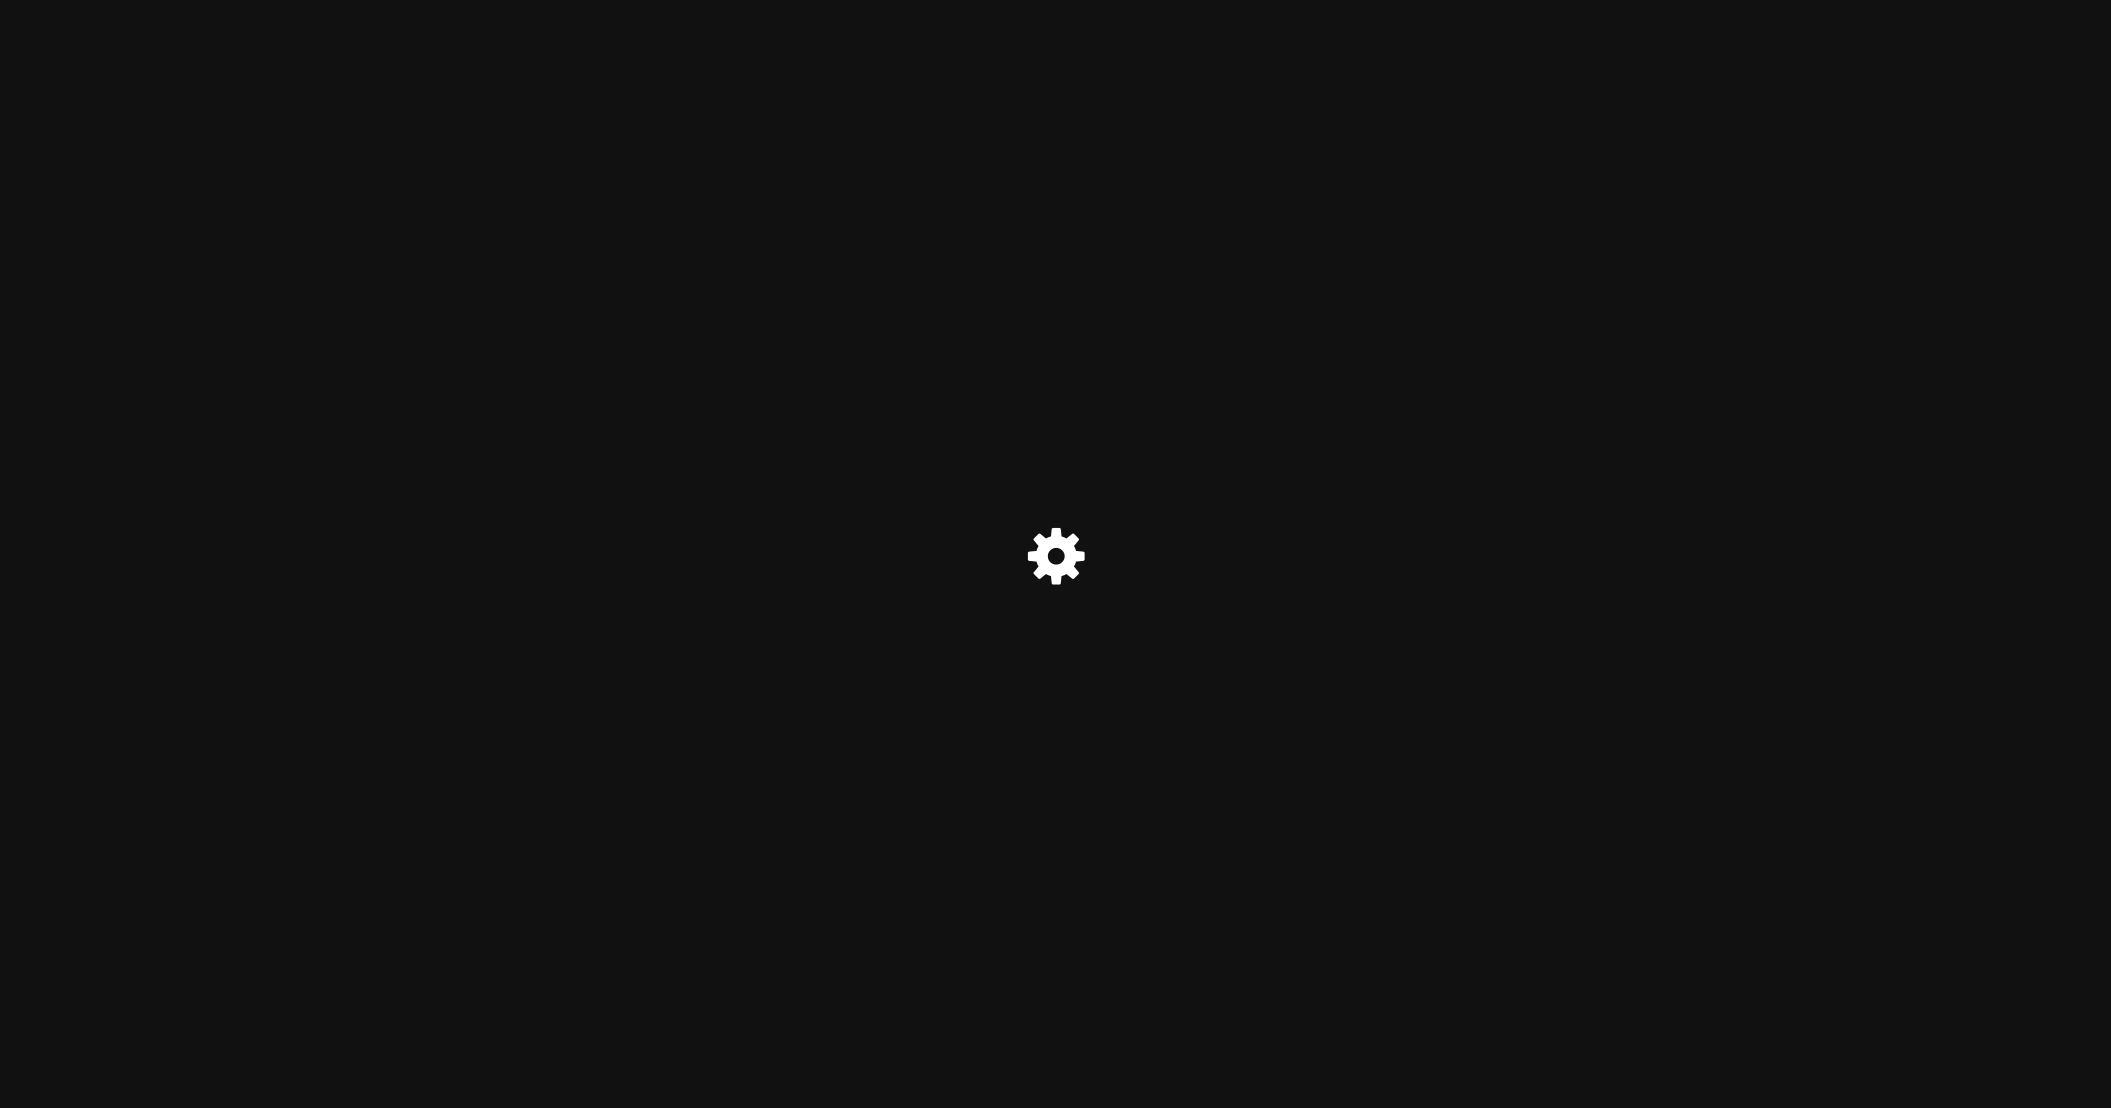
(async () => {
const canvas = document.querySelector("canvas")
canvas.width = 2111
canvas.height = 1108
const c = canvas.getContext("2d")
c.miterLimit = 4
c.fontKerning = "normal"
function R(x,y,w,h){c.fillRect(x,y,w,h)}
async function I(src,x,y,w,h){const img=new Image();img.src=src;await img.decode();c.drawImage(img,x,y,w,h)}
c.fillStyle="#111"
R(0,0,2111,1108)
await I("1.png",1027,527,58,58)
})()
